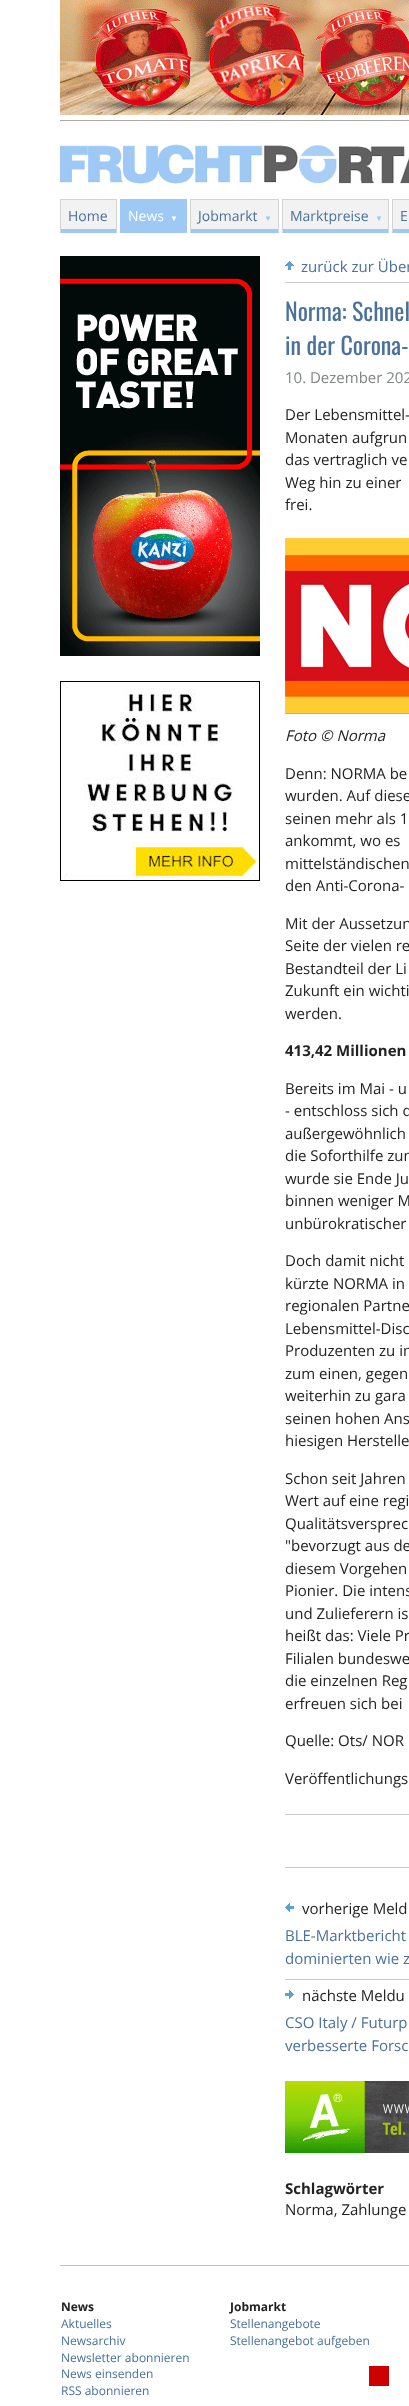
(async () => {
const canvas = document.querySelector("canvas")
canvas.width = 409
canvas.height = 2406
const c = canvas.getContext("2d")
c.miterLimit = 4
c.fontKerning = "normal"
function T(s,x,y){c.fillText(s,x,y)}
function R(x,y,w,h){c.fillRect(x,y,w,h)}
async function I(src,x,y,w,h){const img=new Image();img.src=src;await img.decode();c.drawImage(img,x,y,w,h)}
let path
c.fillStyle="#fff"
R(0,0,409,2406)
c.fillStyle="#a9a9a9"
R(60,120,349,1)
await I("1.png",60,0,349,115)
await I("2.png",60,144,349,40)
c.fillStyle="#f2f2f2"
R(61,200,55,29)
c.fillStyle="#d3d3d3"
R(60,199,57,1)
path = new Path2D("M117 199v34l-1-4v-29z")
c.fill(path)
c.fillStyle="#9ec9f4"
path = new Path2D("M117 233h-57l1-4h55z")
c.fill(path)
c.fillStyle="#d3d3d3"
path = new Path2D("M60 233v-34l1 1v29z")
c.fill(path)
c.font="14px Open Sans"
c.fillStyle="#49719c"
T("Home",68,221)
c.fillStyle="#9ec9f4"
R(121,200,65,29)
R(120,199,67,1)
R(186,199,1,34)
R(120,229,67,4)
R(120,199,1,34)
c.fillStyle="#fff"
T("News",128,221)
c.font="8px Liberation Sans"
T("▼",170,221)
c.fillStyle="#f2f2f2"
R(191,200,87,29)
c.fillStyle="#d3d3d3"
R(190,199,89,1)
path = new Path2D("M279 199v34l-1-4v-29z")
c.fill(path)
c.fillStyle="#9ec9f4"
path = new Path2D("M279 233h-89l1-4h87z")
c.fill(path)
c.fillStyle="#d3d3d3"
path = new Path2D("M190 233v-34l1 1v29z")
c.fill(path)
c.font="14px Open Sans"
c.fillStyle="#49719c"
T("Jobmarkt",198,221)
c.font="8px Liberation Sans"
c.fillStyle="#9ec9f4"
T("▼",264,221)
c.fillStyle="#f2f2f2"
R(283,200,105,29)
c.fillStyle="#d3d3d3"
R(282,199,107,1)
path = new Path2D("M389 199v34l-1-4v-29z")
c.fill(path)
c.fillStyle="#9ec9f4"
path = new Path2D("M389 233h-107l1-4h105z")
c.fill(path)
c.fillStyle="#d3d3d3"
path = new Path2D("M282 233v-34l1 1v29z")
c.fill(path)
c.font="14px Open Sans"
c.fillStyle="#49719c"
T("Marktpreise",290,221)
c.font="8px Liberation Sans"
c.fillStyle="#9ec9f4"
T("▼",375,221)
c.fillStyle="#f2f2f2"
R(393,200,16,29)
c.fillStyle="#d3d3d3"
R(392,199,17,1)
c.fillStyle="#9ec9f4"
path = new Path2D("M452 233h-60l1-4h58z")
c.fill(path)
c.fillStyle="#d3d3d3"
path = new Path2D("M392 233v-34l1 1v29z")
c.fill(path)
c.font="14px Open Sans"
c.fillStyle="#49719c"
T("E",400,221)
await I("3.png",60,256,200,400)
await I("4.png",60,681,200,200)
c.fillStyle="#ccc"
R(285,282,124,1)
await I("5.png",285,261,9,9)
c.font="15px Open Sans"
c.fillStyle="#49719c"
T("zurück zur Über",301,272)
c.font="24px Oswald"
T("Norma: Schnel",285,321)
T("in der Corona-",285,355)
c.font="15px Open Sans"
c.fillStyle="#828585"
T("10. Dezember 202",285,383)
c.fillStyle="#222"
T("Der Lebensmittel-",285,420)
T("Monaten aufgrun",285,443)
T("das vertraglich ve",285,465)
T("Weg hin zu einer",285,488)
T("frei.",285,510)
await I("6.png",285,538,124,176)
c.font="italic 15px Open Sans"
T("Foto © Norma",285,741)
c.font="15px Open Sans"
T("Denn: NORMA be",285,779)
T("wurden. Auf diese",285,801)
T("seinen mehr als 1",285,824)
T("ankommt, wo es",285,846)
T("mittelständischen",285,869)
T("den Anti-Corona-",285,891)
T("Mit der Aussetzun",285,929)
T("Seite der vielen re",285,951)
T("Bestandteil der Li",285,974)
T("Zukunft ein wichti",285,996)
T("werden.",285,1019)
c.font="bold 15px Open Sans"
T("413,42 Millionen",285,1056)
c.font="15px Open Sans"
T("Bereits im Mai - u",285,1094)
T("- entschloss sich d",285,1116)
T("außergewöhnlich",285,1139)
T("die Soforthilfe zun",285,1161)
T("wurde sie Ende Ju",285,1184)
T("binnen weniger M",285,1206)
T("unbürokratischer",285,1229)
T("Doch damit nicht",285,1266)
T("kürzte NORMA in",285,1289)
T("regionalen Partne",285,1311)
T("Lebensmittel-Disc",285,1334)
T("Produzenten zu in",285,1356)
T("zum einen, gegen",285,1379)
T("weiterhin zu gara",285,1401)
T("seinen hohen Ans",285,1424)
T("hiesigen Herstelle",285,1446)
T("Schon seit Jahren",285,1484)
T("Wert auf eine regi",285,1506)
T("Qualitätsversprec",285,1529)
T("\"bevorzugt aus de",285,1551)
T("diesem Vorgehen",285,1574)
T("Pionier. Die intens",285,1596)
T("und Zulieferern is",285,1619)
T("heißt das: Viele Pr",285,1641)
T("Filialen bundeswe",285,1664)
T("die einzelnen Reg",285,1686)
T("erfreuen sich bei",285,1709)
T("Quelle: Ots/ NOR",285,1746)
T("Veröffentlichungs",285,1784)
c.fillStyle="#ccc"
R(285,1814,124,1)
R(285,1867,124,1)
R(285,1979,124,1)
await I("7.png",285,1903,9,9)
c.fillStyle="#222"
T("vorherige Meld",302,1914)
c.fillStyle="#49719c"
T("BLE-Marktbericht",285,1941)
T("dominierten wie z",285,1964)
await I("8.png",285,1990,9,9)
c.fillStyle="#222"
T("nächste Meldu",302,2001)
c.fillStyle="#49719c"
T("CSO Italy / Futurp",285,2028)
T("verbesserte Forsc",285,2051)
await I("9.png",285,2081,124,72)
c.font="bold 15px Open Sans"
c.fillStyle="#222"
T("Schlagwörter",285,2194)
c.font="15px Open Sans"
T("Norma, Zahlunge",285,2215)
c.fillStyle="#9ec9f4"
R(60,2265,349,1)
c.font="bold 12px Open Sans"
c.fillStyle="#222"
T("News",61,2311)
c.font="12px Open Sans"
c.fillStyle="#49719c"
T("Aktuelles",61,2328)
T("Newsarchiv",61,2345)
T("Newsletter abonnieren",61,2362)
T("News einsenden",61,2378)
T("RSS abonnieren",61,2395)
c.font="bold 12px Open Sans"
c.fillStyle="#222"
T("Jobmarkt",230,2311)
c.font="12px Open Sans"
c.fillStyle="#49719c"
T("Stellenangebote",230,2328)
T("Stellenangebot aufgeben",230,2345)
c.fillStyle="#c00"
R(369,2366,20,20)
})()
